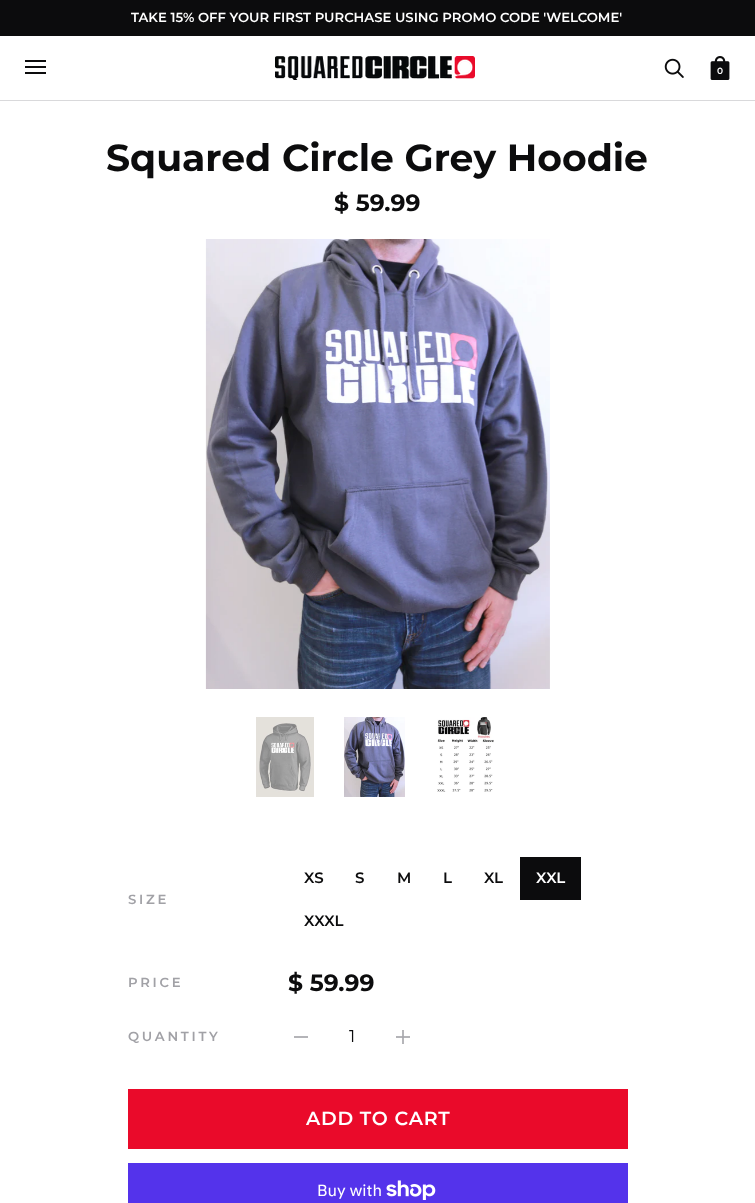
(async () => {
const canvas = document.querySelector("canvas")
canvas.width = 755
canvas.height = 1203
const c = canvas.getContext("2d")
c.miterLimit = 4
c.fontKerning = "normal"
function T(s,x,y){c.fillText(s,x,y)}
function R(x,y,w,h){c.fillRect(x,y,w,h)}
async function I(src,x,y,w,h){const img=new Image();img.src=src;await img.decode();c.drawImage(img,x,y,w,h)}
c.fillStyle="#fff"
R(0,0,755,1203)
c.fillStyle="#0c0c0d"
R(0,0,755,36)
c.font="600 13.2px Montserrat"
c.fillStyle="#fff"
T("TAKE 15% OFF YOUR FIRST PURCHASE USING PROMO CODE 'WELCOME'",131,22)
c.fillStyle="#d9d9db"
R(0,100,755,1)
c.fillStyle="#0c0c0d"
R(25,60,21,2)
R(25,66,21,2)
R(25,72,21,2)
await I("1.png",275,56,200,24)
await I("2.png",664,58,20,20)
await I("3.png",710,56,20,24)
c.font="600 9px Montserrat"
c.fillStyle="#fff"
T("0",717,74)
c.font="bold 37.75px Montserrat"
c.fillStyle="#0c0c0d"
T("Squared Circle Grey Hoodie",106,171)
c.font="bold 23.5px Montserrat"
T("$ 59.99",334,211)
await I("4.png",205,239,345,450)
await I("5.png",256,717,58,80)
await I("6.png",344,717,61,80)
await I("7.png",437,717,57,75)
c.letterSpacing="2.75px"
c.font="600 13.2px Montserrat"
c.fillStyle="#a1a1a6"
T("SIZE",128,904)
c.letterSpacing="0px"
c.font="600 15px Montserrat"
c.fillStyle="#0c0c0d"
T("XS",304,883)
T("S",355,883)
T("M",397,883)
T("L",443,883)
T("XL",484,883)
R(520,857,61,43)
c.fillStyle="#fff"
T("XXL",536,883)
c.fillStyle="#0c0c0d"
T("XXXL",304,926)
c.letterSpacing="2.75px"
c.font="600 13.2px Montserrat"
c.fillStyle="#a1a1a6"
T("PRICE",128,987)
c.letterSpacing="0px"
c.font="bold 23.5px Montserrat"
c.fillStyle="#0c0c0d"
T("$ 59.99",288,991)
c.letterSpacing="2.75px"
c.font="600 13.2px Montserrat"
c.fillStyle="#a1a1a6"
T("QUANTITY",128,1041)
c.fillStyle="#b4b4b8"
R(294,1036,14,2)
c.letterSpacing="0px"
c.font="17px Montserrat"
c.fillStyle="#0c0c0d"
T("1",349,1042)
await I("8.png",396,1030,14,14)
c.fillStyle="#ea0a2a"
R(128,1089,500,60)
c.letterSpacing="0.75px"
c.font="600 19px Montserrat"
c.fillStyle="#fff"
T("ADD TO CART",306,1125)
c.fillStyle="#5433eb"
R(128,1163,500,40)
c.letterSpacing="0px"
c.font="16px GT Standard"
c.fillStyle="#fff"
T("Buy with",317,1196)
await I("9.png",386,1180,50,20)
})()
